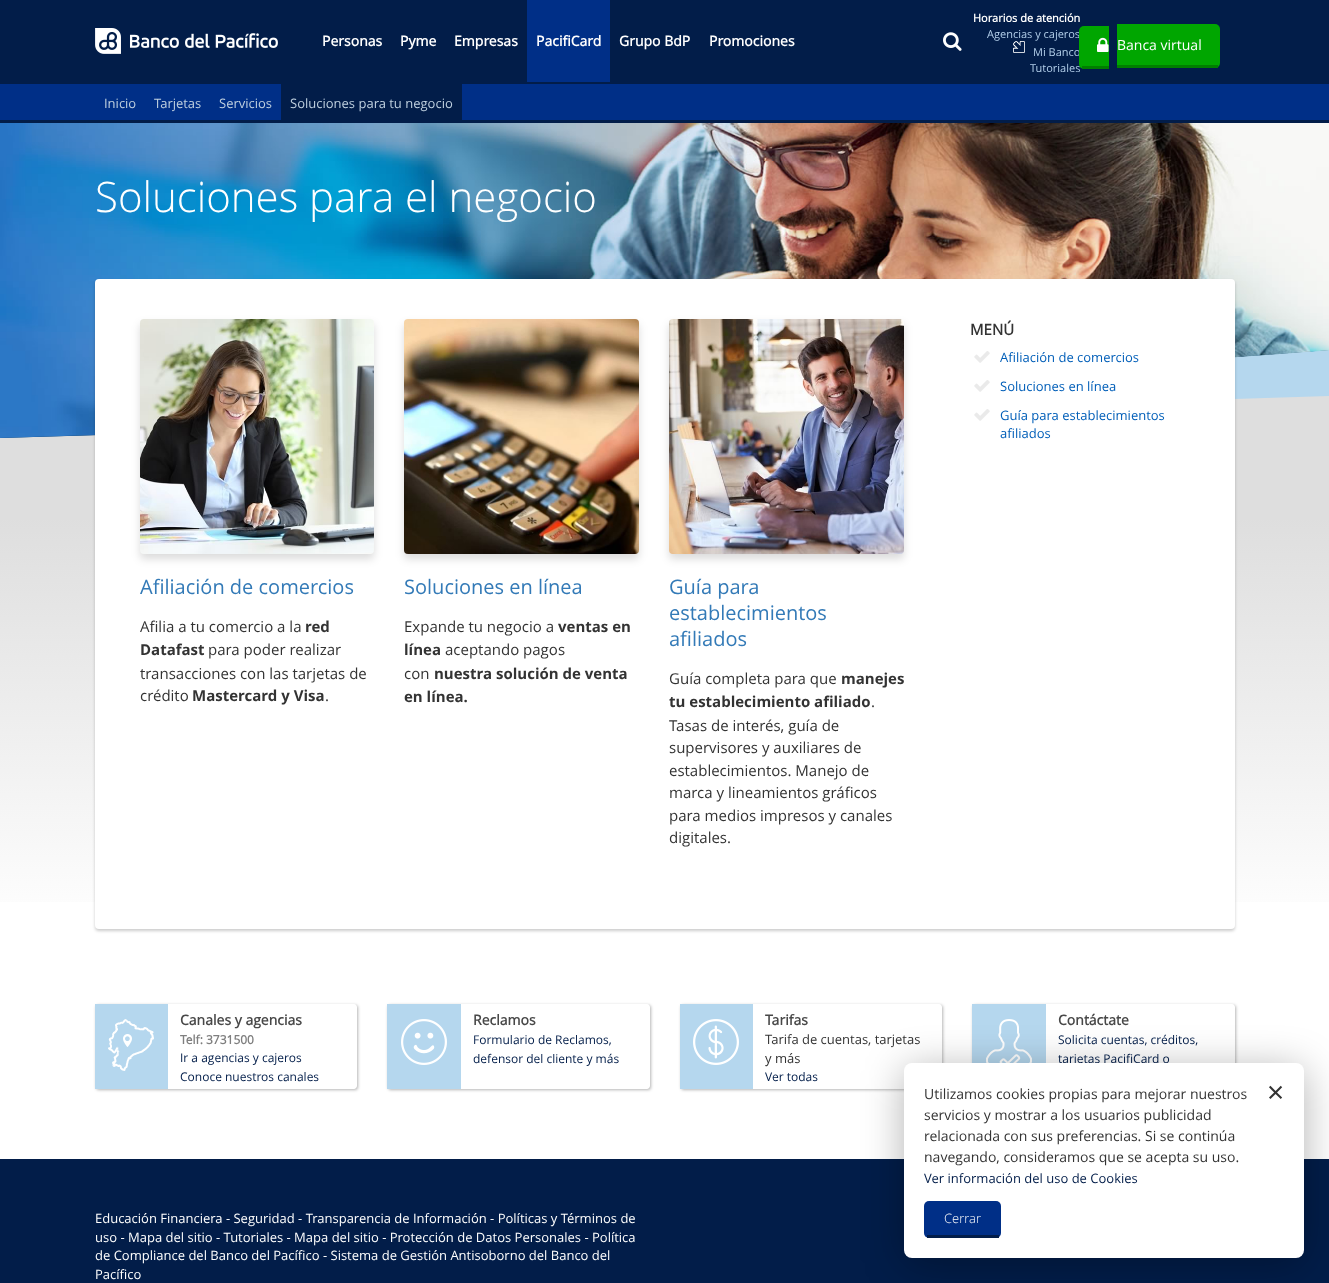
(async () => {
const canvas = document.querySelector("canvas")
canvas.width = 1329
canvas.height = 1283
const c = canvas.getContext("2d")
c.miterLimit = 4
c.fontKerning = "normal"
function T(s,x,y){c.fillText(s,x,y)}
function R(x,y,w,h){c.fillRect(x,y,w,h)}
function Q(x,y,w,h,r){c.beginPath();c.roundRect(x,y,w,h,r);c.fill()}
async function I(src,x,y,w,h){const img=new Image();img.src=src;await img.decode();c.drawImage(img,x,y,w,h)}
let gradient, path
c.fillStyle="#fff"
R(0,0,1329,1283)
c.fillStyle="#021d49"
R(0,0,1329,84)
await I("1.png",95,28,183,26)
c.font="bold 14px Open Sans"
c.fillStyle="#fff"
T("Personas",322,46)
T("Pyme",400,46)
T("Empresas",454,46)
c.fillStyle="#002f87"
R(527,0,83,82)
c.fillStyle="#fff"
T("PacifiCard",536,46)
T("Grupo BdP",619,46)
T("Promociones",709,46)
await I("2.png",943,32,19,19)
c.font="bold 11px Open Sans"
T("Horarios de atención",973,22)
c.font="11px Open Sans"
c.fillStyle="#b3cfea"
T("Agencias y cajeros",987,38)
await I("3.png",1013,41,12,12)
T("Mi Banco",1033,56)
T("Tutoriales",1030,72)
c.fillStyle="#00a600"
c.beginPath()
c.roundRect(1079,26,30,43,[5,0,0,5])
c.fill()
await I("4.png",1097,37,12,15)
c.beginPath()
c.roundRect(1117,24,103,44,[0,5,5,0])
c.fill()
c.font="14px Open Sans"
c.fillStyle="#fff"
T("Banca virtual",1117,50)
c.fillStyle="#007e00"
R(1082,66,27,3)
R(1117,65,101,3)
c.fillStyle="#002f87"
R(0,84,1329,36)
c.fillStyle="#021d49"
R(0,120,1329,3)
c.font="13px Open Sans"
c.fillStyle="#bfd0df"
T("Inicio",104,108)
T("Tarjetas",154,108)
T("Servicios",219,108)
c.fillStyle="#021d49"
R(281,84,181,36)
c.fillStyle="#bfd0df"
T("Soluciones para tu negocio",290,108)
gradient = c.createLinearGradient(665,133,665,934)
gradient.addColorStop(.48,"#dedede")
gradient.addColorStop(1,"#fff")
c.fillStyle = gradient
R(0,396,1329,506)
c.fillStyle="#b5d7ee"
path = new Path2D("M0 123v315l1329-42v-273z")
c.fill(path)
c.fillStyle="#002e59"
path = new Path2D("M0 123v315l235-7l1094-81v-227z")
c.fill(path)
await I("5.png",0,123,1329,315)
c.font="300 42px Open Sans"
c.fillStyle="#fff"
T("Soluciones para el negocio",95,212)
c.fillStyle="#00000033"
c.filter="blur(1.5px)"
c.beginPath()
c.roundRect(95,281,1140,650,4)
c.fill()
c.filter="none"
c.fillStyle="#fff"
Q(95,279,1140,650,4)
c.font="bold 15px Open Sans"
c.fillStyle="#333"
T("MENÚ",970,335)
await I("6.png",974,351,16,12)
c.font="13px Open Sans"
c.fillStyle="#005eb8"
T("Afiliación de comercios",1000,362)
await I("6.png",974,380,16,12)
T("Soluciones en línea",1000,391)
await I("6.png",974,409,16,12)
T("Guía para establecimientos",1000,420)
T("afiliados",1000,438)
c.fillStyle="#00000024"
c.filter="blur(4.5px)"
c.beginPath()
c.roundRect(140,324,234,235,4)
c.fill()
c.filter="none"
await I("7.png",140,319,234,235)
c.font="20px Open Sans"
c.fillStyle="#337ab7"
T("Afiliación de comercios",140,594)
c.font="15px Open Sans"
c.fillStyle="#333"
T("Afilia a tu comercio a la",140,632)
c.font="bold 15px 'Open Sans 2'"
T("red",305,632)
T("Datafast",140,655)
c.font="15px Open Sans"
T("para poder realizar",208,655)
T("transacciones con las tarjetas de",140,679)
T("crédito",140,701)
c.font="bold 15px 'Open Sans 2'"
T("Mastercard y Visa",192,701)
c.font="15px Open Sans"
T(".",325,701)
c.fillStyle="#00000024"
c.filter="blur(4.5px)"
c.beginPath()
c.roundRect(404,324,235,235,4)
c.fill()
c.filter="none"
await I("8.png",404,319,235,235)
c.font="20px Open Sans"
c.fillStyle="#337ab7"
T("Soluciones en línea",404,594)
c.font="15px Open Sans"
c.fillStyle="#333"
T("Expande tu negocio a",404,632)
c.font="bold 15px 'Open Sans 2'"
T("ventas en",558,632)
T("línea",404,655)
c.font="15px Open Sans"
T("aceptando pagos",445,655)
T("con",404,679)
c.font="bold 15px 'Open Sans 2'"
T("nuestra solución de venta",434,679)
T("en línea.",404,702)
c.fillStyle="#00000024"
c.filter="blur(4.5px)"
c.beginPath()
c.roundRect(669,324,235,235,4)
c.fill()
c.filter="none"
await I("9.png",669,319,235,235)
c.font="20px Open Sans"
c.fillStyle="#337ab7"
T("Guía para",669,594)
T("establecimientos",669,620)
T("afiliados",669,646)
c.font="15px Open Sans"
c.fillStyle="#333"
T("Guía completa para que",669,684)
c.font="bold 15px 'Open Sans 2'"
T("manejes",841,684)
T("tu establecimiento afiliado",669,707)
c.font="15px Open Sans"
T(".",871,707)
T("Tasas de interés, guía de",669,731)
T("supervisores y auxiliares de",669,753)
T("establecimientos. Manejo de",669,776)
T("marca y lineamientos gráficos",669,798)
T("para medios impresos y canales",669,821)
T("digitales.",669,843)
c.save()
path = new Path2D("M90 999h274v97h-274zm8 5h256c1.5 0 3 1.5 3 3v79c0 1.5-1.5 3-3 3h-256c-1.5 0-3-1.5-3-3v-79c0-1.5 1.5-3 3-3z")
c.clip(path,"evenodd")
c.fillStyle="#0000004a"
c.filter="blur(1.5px)"
c.beginPath()
c.roundRect(96,1005,262,85,3)
c.fill()
c.filter="none"
c.restore()
c.fillStyle="#b5d7ee"
R(95,1004,73,85)
await I("10.png",108,1019,46,52)
c.font="bold 14px Open Sans"
c.fillStyle="#484848"
T("Canales y agencias",180,1025)
c.font="bold 12px Open Sans"
c.fillStyle="#7f7f7f"
T("Telf: 3731500",180,1044)
c.font="12px Open Sans"
c.fillStyle="#021d49"
T("Ir a agencias y cajeros",180,1062)
T("Conoce nuestros canales",180,1081)
c.save()
path = new Path2D("M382 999h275v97h-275zm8 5h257c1.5 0 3 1.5 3 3v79c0 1.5-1.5 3-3 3h-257c-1.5 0-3-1.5-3-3v-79c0-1.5 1.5-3 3-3z")
c.clip(path,"evenodd")
c.fillStyle="#0000004a"
c.filter="blur(1.5px)"
c.beginPath()
c.roundRect(388,1005,263,85,3)
c.fill()
c.filter="none"
c.restore()
c.fillStyle="#b5d7ee"
R(387,1004,74,85)
await I("11.png",401,1019,46,46)
c.font="bold 14px Open Sans"
c.fillStyle="#484848"
T("Reclamos",473,1025)
c.font="12px Open Sans"
c.fillStyle="#021d49"
T("Formulario de Reclamos,",473,1044)
T("defensor del cliente y más",473,1063)
c.save()
path = new Path2D("M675 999h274v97h-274zm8 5h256c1.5 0 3 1.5 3 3v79c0 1.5-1.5 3-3 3h-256c-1.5 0-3-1.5-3-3v-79c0-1.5 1.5-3 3-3z")
c.clip(path,"evenodd")
c.fillStyle="#0000004a"
c.filter="blur(1.5px)"
c.beginPath()
c.roundRect(681,1005,262,85,3)
c.fill()
c.filter="none"
c.restore()
c.fillStyle="#b5d7ee"
R(680,1004,73,85)
await I("12.png",693,1019,46,46)
c.font="bold 14px Open Sans"
c.fillStyle="#484848"
T("Tarifas",765,1025)
c.font="13px Open Sans"
c.fillStyle="#333"
T("Tarifa de cuentas, tarjetas",765,1044)
T("y más",765,1063)
c.font="12px Open Sans"
c.fillStyle="#021d49"
T("Ver todas",765,1081)
c.save()
path = new Path2D("M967 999h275v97h-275zm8 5h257c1.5 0 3 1.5 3 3v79c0 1.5-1.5 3-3 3h-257c-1.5 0-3-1.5-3-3v-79c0-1.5 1.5-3 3-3z")
c.clip(path,"evenodd")
c.fillStyle="#0000004a"
c.filter="blur(1.5px)"
c.beginPath()
c.roundRect(973,1005,263,85,3)
c.fill()
c.filter="none"
c.restore()
c.fillStyle="#b5d7ee"
R(972,1004,74,59)
await I("13.png",986,1019,46,44)
c.font="bold 14px Open Sans"
c.fillStyle="#484848"
T("Contáctate",1058,1025)
c.font="12px Open Sans"
c.fillStyle="#021d49"
T("Solicita cuentas, créditos,",1058,1044)
T("tarjetas PacifiCard o",1058,1063)
R(0,1159,1329,124)
c.fillStyle="#0000004d"
c.filter="blur(20px)"
c.beginPath()
c.roundRect(904,1069,400,195,8)
c.fill()
c.filter="none"
c.fillStyle="#fff"
Q(904,1063,400,195,8)
c.font="14px Open Sans"
c.fillStyle="#333"
T("Utilizamos cookies propias para mejorar nuestros",924,1099)
T("servicios y mostrar a los usuarios publicidad",924,1120)
T("relacionada con sus preferencias. Si se continúa",924,1141)
T("navegando, consideramos que se acepta su uso.",924,1162)
c.font="13px Open Sans"
c.fillStyle="#021d49"
T("Ver información del uso de Cookies",924,1183)
c.fillStyle="#002f87"
Q(924,1201,77,37,5)
c.font="300 13px Open Sans"
c.fillStyle="#fff"
T("Cerrar",944,1223)
c.fillStyle="#021d49"
R(927,1235,72,3)
c.font="30px Open Sans"
c.fillStyle="#333"
T("×",1267,1103)
c.font="13px Open Sans"
c.fillStyle="#fff"
T("Educación Financiera - Seguridad - Transparencia de Información - Políticas y Términos de",95,1223)
T("uso - Mapa del sitio - Tutoriales - Mapa del sitio - Protección de Datos Personales - Política",95,1242)
T("de Compliance del Banco del Pacífico - Sistema de Gestión Antisoborno del Banco del",95,1260)
T("Pacífico",95,1279)
})()
